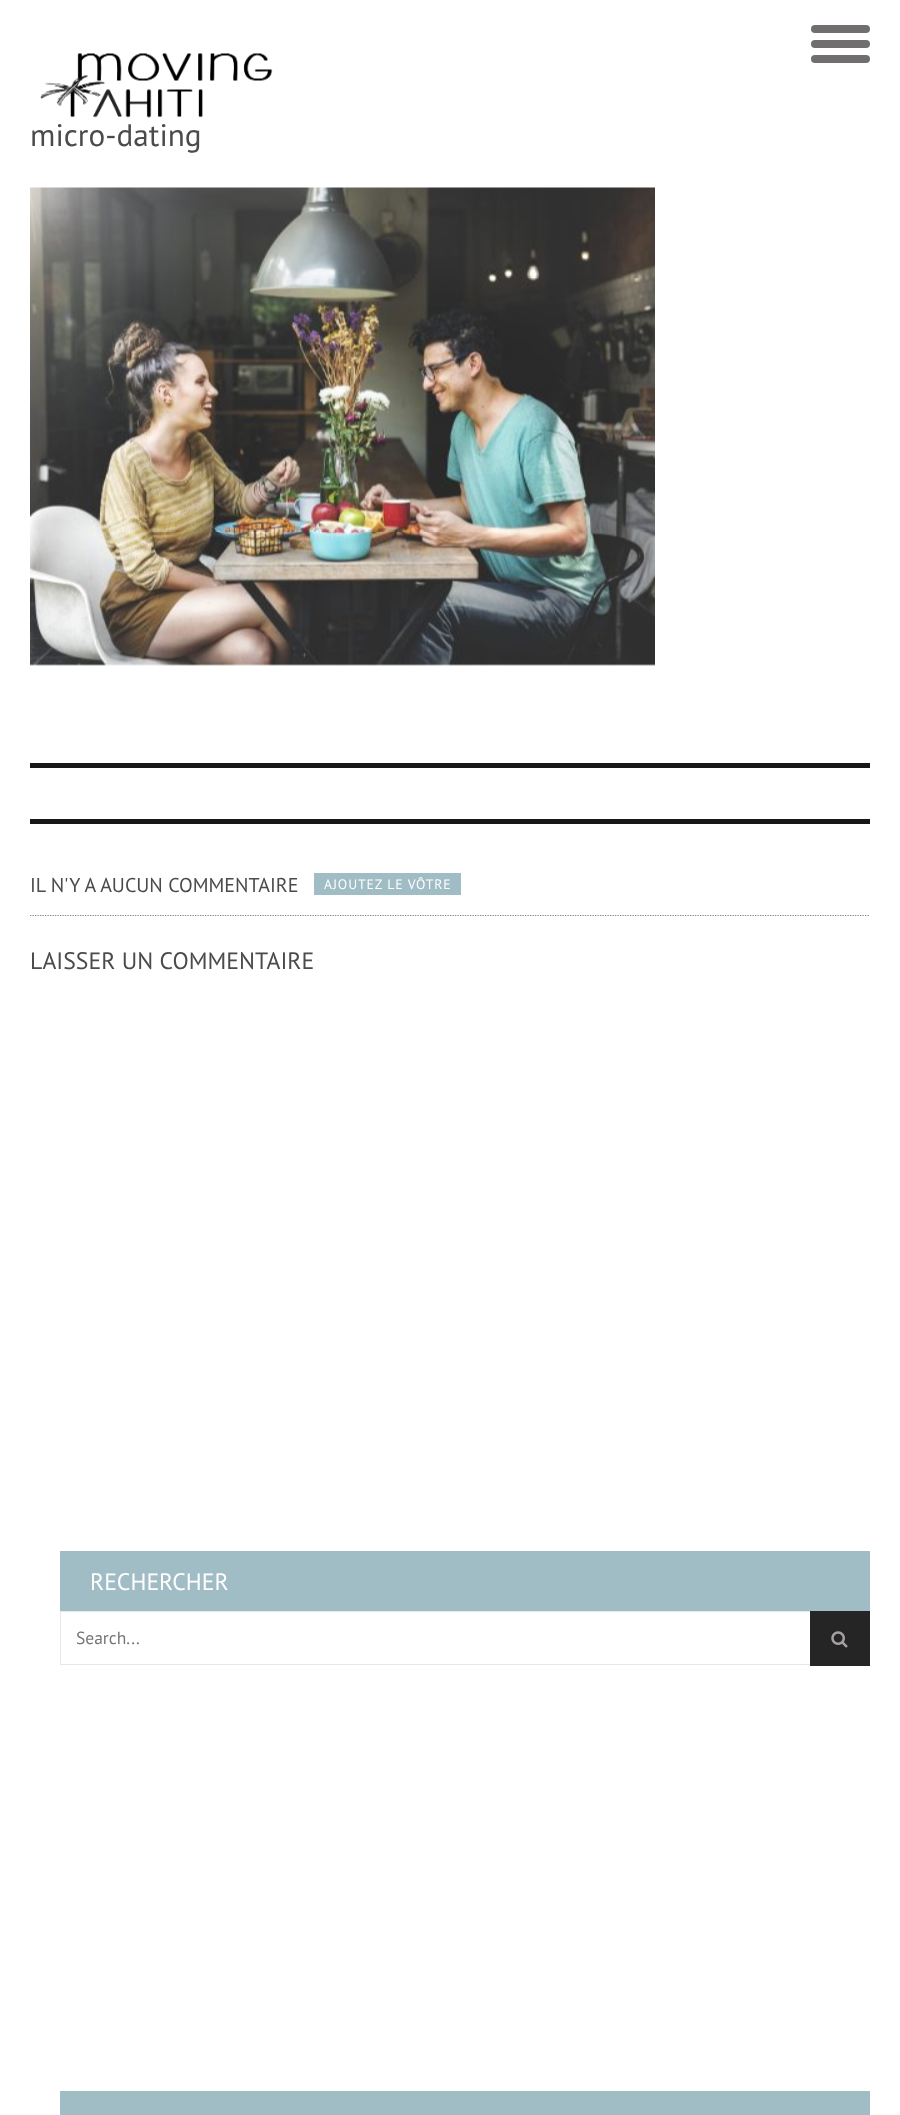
(async () => {
const canvas = document.querySelector("canvas")
canvas.width = 900
canvas.height = 2115
const c = canvas.getContext("2d")
c.miterLimit = 4
c.fontKerning = "normal"
function T(s,x,y){c.fillText(s,x,y)}
function R(x,y,w,h){c.fillRect(x,y,w,h)}
function Q(x,y,w,h,r){c.beginPath();c.roundRect(x,y,w,h,r);c.fill()}
async function I(src,x,y,w,h){const img=new Image();img.src=src;await img.decode();c.drawImage(img,x,y,w,h)}
let path
c.fillStyle="#fff"
R(0,0,900,2115)
c.fillStyle="#706e6e"
Q(811,40,59,8,4)
Q(811,25,59,8,4)
Q(811,55,59,8,4)
await I("1.png",40,52,233,66)
c.font="31.25px PT Sans"
c.fillStyle="#4c4a4a"
T("micro-dating",30,146)
await I("2.png",30,187,625,479)
c.fillStyle="#1a1717"
R(30,763,840,5)
R(30,819,840,5)
path = new Path2D("M30 915.5h840")
c.strokeStyle="#807f7e"
c.lineWidth=1.2
c.setLineDash([1.25,1.25])
c.stroke(path)
c.font="20px PT Sans"
c.fillStyle="#4c4a4a"
T("IL N'Y A AUCUN COMMENTAIRE",30,892)
c.fillStyle="#a0bcc4"
R(314,873,147,22)
c.letterSpacing="0.9px"
c.font="13.75px PT Sans"
c.fillStyle="#fff"
T("AJOUTEZ LE VÔTRE",324,889)
c.letterSpacing="0px"
c.font="23.75px PT Sans"
c.fillStyle="#4c4a4a"
T("LAISSER UN COMMENTAIRE",30,969)
c.fillStyle="#a0bcc4"
R(60,1551,810,60)
c.fillStyle="#fff"
T("RECHERCHER",90,1590)
c.strokeStyle="#e5e9eb"
c.lineWidth=1
c.setLineDash([])
c.strokeRect(60.5,1611.5,809,53)
c.font="17.5px PT Sans"
c.fillStyle="#757575"
T("Search...",76,1644)
c.fillStyle="#262525"
R(810,1611,60,55)
await I("3.png",831,1631,17,17)
c.fillStyle="#a0bcc4"
R(60,2091,810,24)
})()
